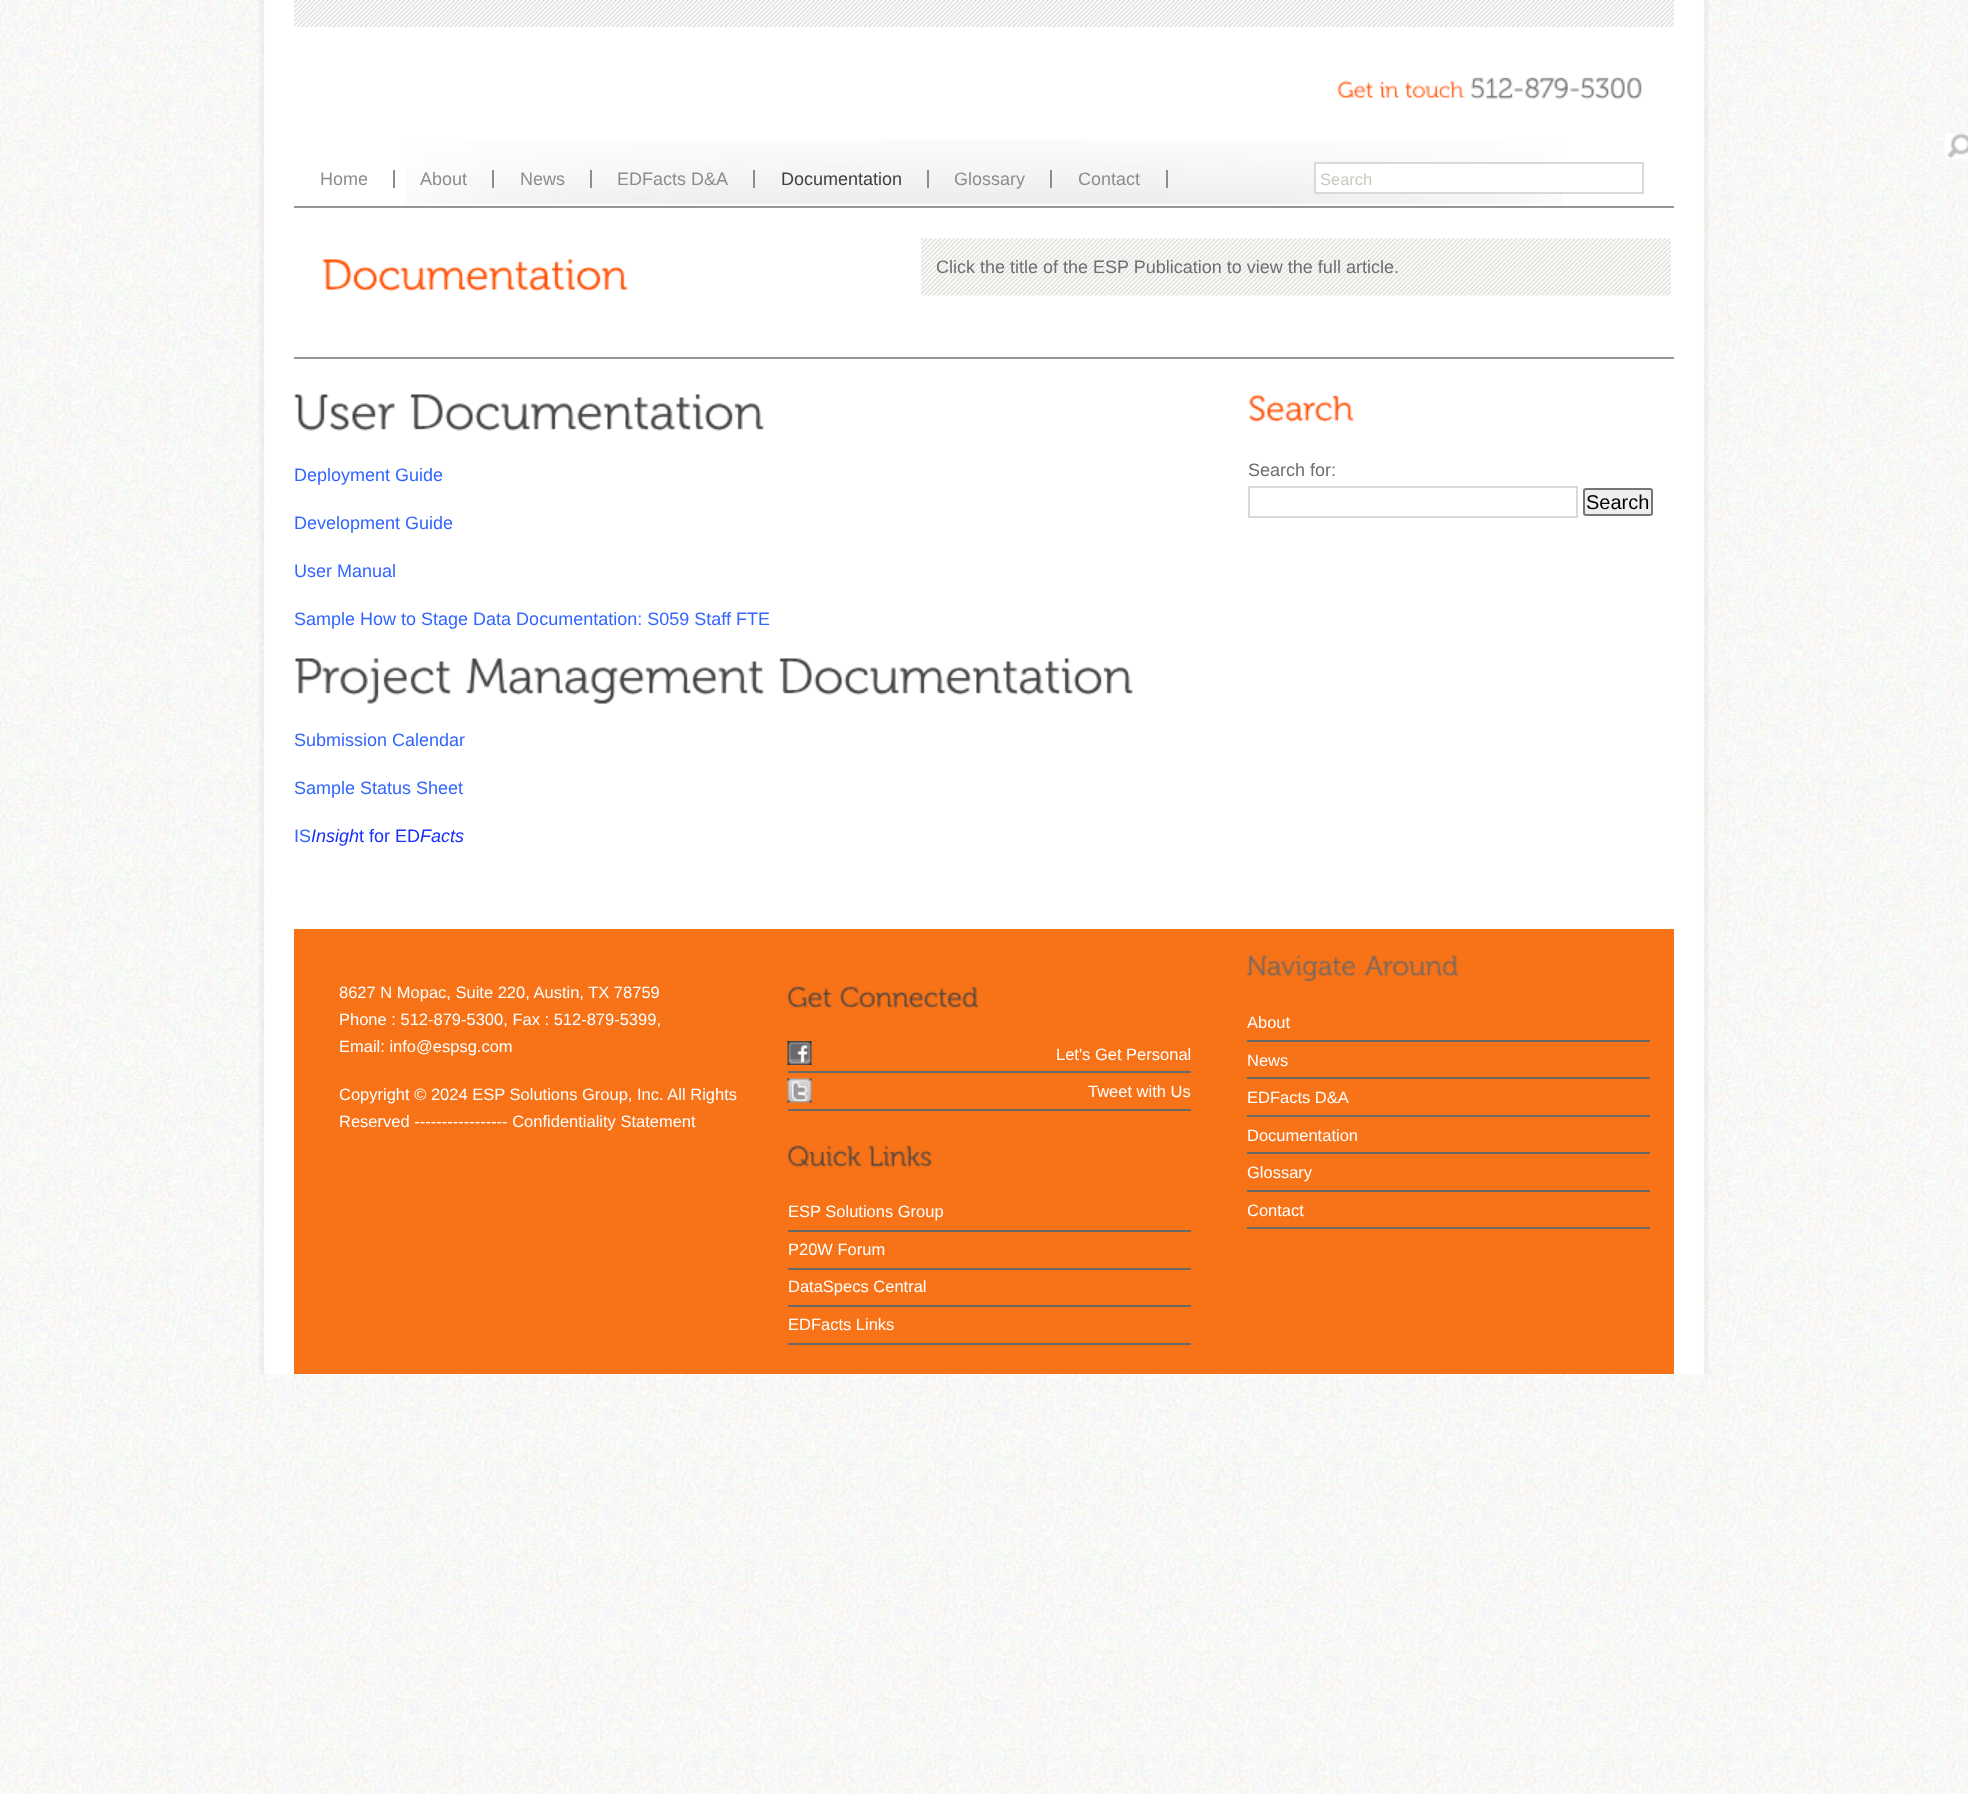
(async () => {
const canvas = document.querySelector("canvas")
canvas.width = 1968
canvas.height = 1794
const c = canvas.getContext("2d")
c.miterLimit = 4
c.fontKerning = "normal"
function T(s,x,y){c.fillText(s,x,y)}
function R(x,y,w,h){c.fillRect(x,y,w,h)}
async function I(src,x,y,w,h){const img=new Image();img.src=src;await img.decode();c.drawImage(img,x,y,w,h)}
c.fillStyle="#fff"
R(0,0,1968,1794)
await I("1.png",0,0,1968,1794)
await I("2.png",259,0,1450,1374)
await I("3.png",406,140,1156,64)
await I("4.png",294,0,1380,27)
await I("5.png",1337,80,36,18)
await I("6.png",1379,80,20,18)
await I("7.png",1405,80,60,18)
await I("8.png",1471,77,171,23)
c.fillStyle="#969696"
R(294,206,1380,2)
c.fillStyle="#8e8c8c"
R(393,170,2,18)
c.font="18px Liberation Sans"
T("Home",320,185)
R(492,170,2,18)
T("About",420,185)
R(590,170,2,18)
T("News",520,185)
R(753,170,2,18)
T("EDFacts D&A",617,185)
R(927,170,2,18)
c.fillStyle="#3f3f3f"
T("Documentation",781,185)
c.fillStyle="#8e8c8c"
R(1050,170,2,18)
T("Glossary",954,185)
R(1166,170,2,18)
T("Contact",1078,185)
await I("9.png",1945,133,23,26)
c.fillStyle="#fff"
R(1316,164,246,28)
c.strokeStyle="#d9d9d9"
c.lineWidth=2
c.strokeRect(1315,163,328,30)
c.font="16.5px Liberation Sans"
c.fillStyle="#c8c9be"
T("Search",1320,185)
c.fillStyle="#969696"
R(294,357,1380,2)
await I("10.png",322,259,306,33)
await I("11.png",921,238,750,58)
c.font="18px Liberation Sans"
c.fillStyle="#6f6f6f"
T("Click the title of the ESP Publication to view the full article.",936,273)
await I("12.png",293,394,102,37)
await I("13.png",410,394,354,37)
c.fillStyle="#36f"
T("Deployment Guide",294,481)
T("Development Guide",294,529)
T("User Manual",294,577)
T("Sample How to Stage Data Documentation: S059 Staff FTE",294,625)
await I("14.png",295,658,156,46)
await I("15.png",466,658,298,46)
await I("13.png",779,658,354,37)
T("Submission Calendar",294,746)
T("Sample Status Sheet",294,794)
T("IS",294,842)
c.font="italic 18px Liberation Sans"
c.fillStyle="#182fff"
T("Insigh",311,842)
c.font="18px Liberation Sans"
T("t for ED",359,842)
c.font="italic 18px Liberation Sans"
T("Facts",420,842)
await I("16.png",1249,394,105,28)
c.font="18px Liberation Sans"
c.fillStyle="#6f6f6f"
T("Search for:",1248,476)
c.strokeRect(1249,487,328,30)
c.fillStyle="#efefef"
c.beginPath()
c.roundRect(1584,489,68,26,2)
c.fill()
c.strokeStyle="#767676"
c.stroke()
c.font="20px Liberation Sans"
c.fillStyle="#000"
T("Search",1586,509)
c.fillStyle="#f87217"
R(294,929,1380,445)
c.font="16.5px Liberation Sans"
c.fillStyle="#fff"
T("8627 N Mopac, Suite 220, Austin, TX 78759",339,998)
T("Phone : 512-879-5300, Fax : 512-879-5399,",339,1025)
T("Email: info@espsg.com",339,1052)
T("Copyright © 2024 ESP Solutions Group, Inc. All Rights",339,1100)
T("Reserved ----------------- Confidentiality Statement",339,1127)
await I("17.png",787,986,45,23)
await I("18.png",839,986,140,23)
c.fillStyle="#686868"
R(788,1071,403,2)
await I("19.png",787,1041,25,24)
c.fillStyle="#fff"
T("Let's Get Personal",1056,1060)
c.fillStyle="#686868"
R(788,1109,403,2)
await I("20.png",787,1078,25,25)
c.fillStyle="#fff"
T("Tweet with Us",1088,1097)
await I("21.png",787,1145,75,23)
await I("22.png",868,1145,64,23)
c.fillStyle="#686868"
R(788,1230,403,2)
c.fillStyle="#fff"
T("ESP Solutions Group",788,1217)
c.fillStyle="#686868"
R(788,1268,403,2)
c.fillStyle="#fff"
T("P20W Forum",788,1255)
c.fillStyle="#686868"
R(788,1305,403,2)
c.fillStyle="#fff"
T("DataSpecs Central",788,1292)
c.fillStyle="#686868"
R(788,1343,403,2)
c.fillStyle="#fff"
T("EDFacts Links",788,1330)
await I("23.png",1246,955,110,26)
await I("24.png",1364,955,95,22)
c.fillStyle="#686868"
R(1247,1040,403,2)
c.fillStyle="#fff"
T("About",1247,1028)
c.fillStyle="#686868"
R(1247,1077,403,2)
c.fillStyle="#fff"
T("News",1247,1066)
c.fillStyle="#686868"
R(1247,1115,403,2)
c.fillStyle="#fff"
T("EDFacts D&A",1247,1103)
c.fillStyle="#686868"
R(1247,1152,403,2)
c.fillStyle="#fff"
T("Documentation",1247,1141)
c.fillStyle="#686868"
R(1247,1190,403,2)
c.fillStyle="#fff"
T("Glossary",1247,1178)
c.fillStyle="#686868"
R(1247,1227,403,2)
c.fillStyle="#fff"
T("Contact",1247,1216)
})()
